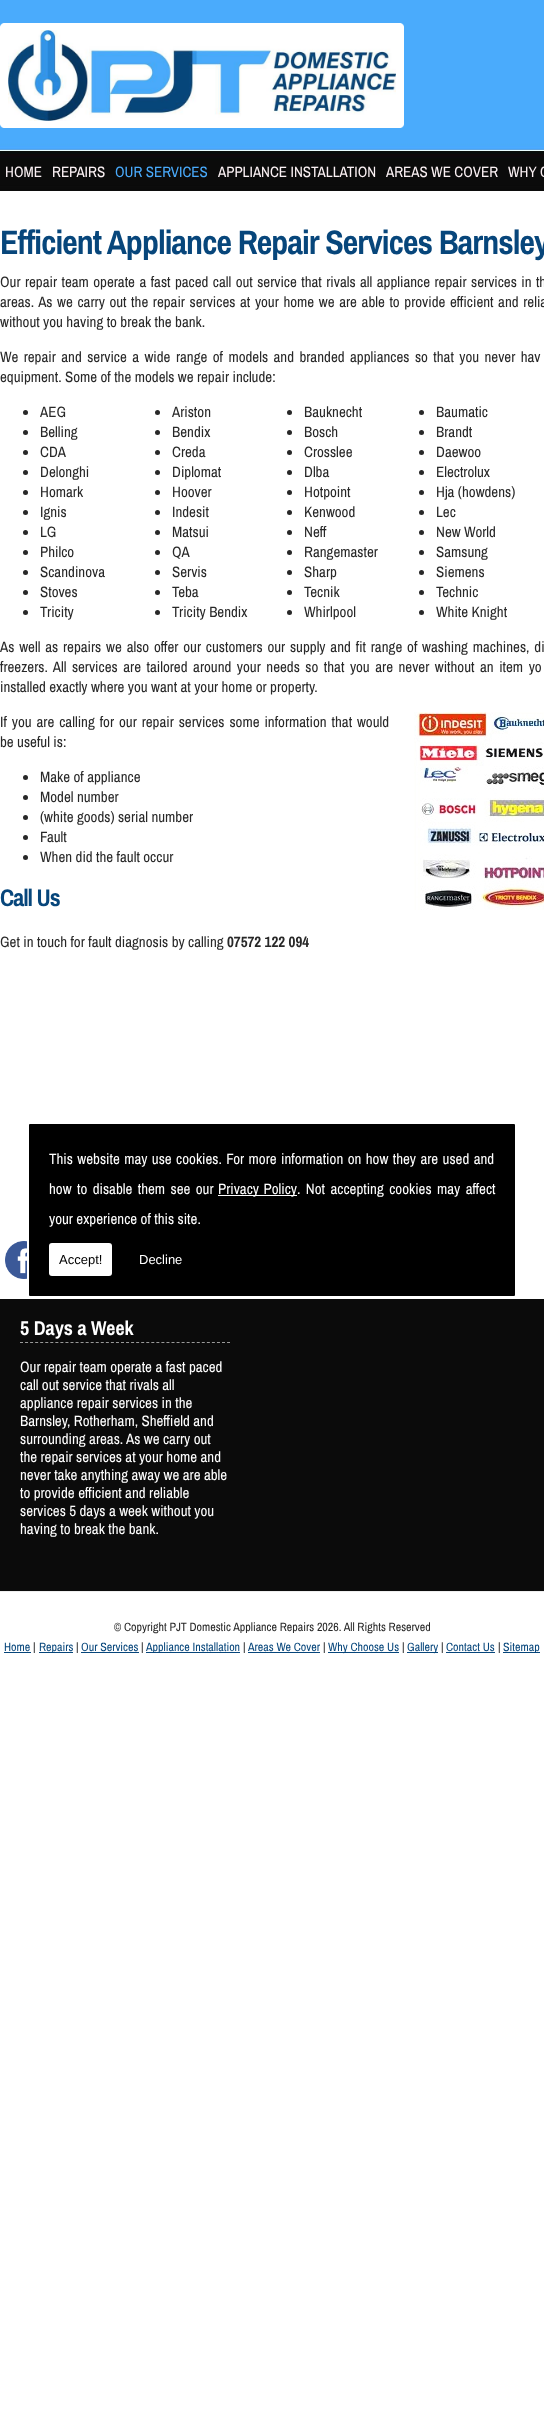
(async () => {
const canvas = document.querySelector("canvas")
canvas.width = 544
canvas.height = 2420
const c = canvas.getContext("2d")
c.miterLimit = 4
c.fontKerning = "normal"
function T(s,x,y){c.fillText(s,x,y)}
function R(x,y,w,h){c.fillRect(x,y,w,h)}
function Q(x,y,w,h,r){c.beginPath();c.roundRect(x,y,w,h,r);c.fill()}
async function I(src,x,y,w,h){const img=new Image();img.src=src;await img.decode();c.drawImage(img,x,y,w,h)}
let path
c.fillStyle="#fff"
R(0,0,544,2420)
await I("1.png",0,0,544,191)
await I("2.png",0,23,404,105)
c.font="15px Archivo Narrow"
c.fillStyle="#fcf2f5"
T("HOME",5,177)
T("REPAIRS",52,177)
c.fillStyle="#4aabfc"
T("OUR SERVICES",115,177)
c.fillStyle="#fcf2f5"
T("APPLIANCE INSTALLATION",218,177)
T("AREAS WE COVER",386,177)
T("WHY C",508,177)
c.letterSpacing="-1px"
c.font="bold 34px Archivo Narrow"
c.fillStyle="#07467b"
T("Efficient Appliance Repair Services Barnsley",0,254)
c.letterSpacing="0px"
c.wordSpacing="1px"
c.font="15px Archivo Narrow"
c.fillStyle="#282828"
T("Our repair team operate a fast paced call out service that rivals all appliance repair services in th",0,287)
c.wordSpacing="1.2px"
T("areas. As we carry out the repair services at your home we are able to provide efficient and relia",0,307)
c.wordSpacing="0px"
T("without you having to break the bank.",0,327)
c.wordSpacing="2px"
T("We repair and service a wide range of models and branded appliances so that you never hav",0,362)
c.wordSpacing="0px"
T("equipment. Some of the models we repair include:",0,382)
c.beginPath()
c.arc(25.5,412.5,2.5,0,7)
c.fill()
T("AEG",40,417)
c.beginPath()
c.arc(157.5,412.5,2.5,0,7)
c.fill()
T("Ariston",172,417)
c.beginPath()
c.arc(289.5,412.5,2.5,0,7)
c.fill()
T("Bauknecht",304,417)
c.beginPath()
c.arc(421.5,412.5,2.5,0,7)
c.fill()
T("Baumatic",436,417)
c.beginPath()
c.arc(25.5,432.5,2.5,0,7)
c.fill()
T("Belling",40,437)
c.beginPath()
c.arc(157.5,432.5,2.5,0,7)
c.fill()
T("Bendix",172,437)
c.beginPath()
c.arc(289.5,432.5,2.5,0,7)
c.fill()
T("Bosch",304,437)
c.beginPath()
c.arc(421.5,432.5,2.5,0,7)
c.fill()
T("Brandt",436,437)
c.beginPath()
c.arc(25.5,452.5,2.5,0,7)
c.fill()
T("CDA",40,457)
c.beginPath()
c.arc(157.5,452.5,2.5,0,7)
c.fill()
T("Creda",172,457)
c.beginPath()
c.arc(289.5,452.5,2.5,0,7)
c.fill()
T("Crosslee",304,457)
c.beginPath()
c.arc(421.5,452.5,2.5,0,7)
c.fill()
T("Daewoo",436,457)
c.beginPath()
c.arc(25.5,472.5,2.5,0,7)
c.fill()
T("Delonghi",40,477)
c.beginPath()
c.arc(157.5,472.5,2.5,0,7)
c.fill()
T("Diplomat",172,477)
c.beginPath()
c.arc(289.5,472.5,2.5,0,7)
c.fill()
T("Dlba",304,477)
c.beginPath()
c.arc(421.5,472.5,2.5,0,7)
c.fill()
T("Electrolux",436,477)
c.beginPath()
c.arc(25.5,492.5,2.5,0,7)
c.fill()
T("Homark",40,497)
c.beginPath()
c.arc(157.5,492.5,2.5,0,7)
c.fill()
T("Hoover",172,497)
c.beginPath()
c.arc(289.5,492.5,2.5,0,7)
c.fill()
T("Hotpoint",304,497)
c.beginPath()
c.arc(421.5,492.5,2.5,0,7)
c.fill()
T("Hja (howdens)",436,497)
c.beginPath()
c.arc(25.5,512.5,2.5,0,7)
c.fill()
T("Ignis",40,517)
c.beginPath()
c.arc(157.5,512.5,2.5,0,7)
c.fill()
T("Indesit",172,517)
c.beginPath()
c.arc(289.5,512.5,2.5,0,7)
c.fill()
T("Kenwood",304,517)
c.beginPath()
c.arc(421.5,512.5,2.5,0,7)
c.fill()
T("Lec",436,517)
c.beginPath()
c.arc(25.5,532.5,2.5,0,7)
c.fill()
T("LG",40,537)
c.beginPath()
c.arc(157.5,532.5,2.5,0,7)
c.fill()
T("Matsui",172,537)
c.beginPath()
c.arc(289.5,532.5,2.5,0,7)
c.fill()
T("Neff",304,537)
c.beginPath()
c.arc(421.5,532.5,2.5,0,7)
c.fill()
T("New World",436,537)
c.beginPath()
c.arc(25.5,552.5,2.5,0,7)
c.fill()
T("Philco",40,557)
c.beginPath()
c.arc(157.5,552.5,2.5,0,7)
c.fill()
T("QA",172,557)
c.beginPath()
c.arc(289.5,552.5,2.5,0,7)
c.fill()
T("Rangemaster",304,557)
c.beginPath()
c.arc(421.5,552.5,2.5,0,7)
c.fill()
T("Samsung",436,557)
c.beginPath()
c.arc(25.5,572.5,2.5,0,7)
c.fill()
T("Scandinova",40,577)
c.beginPath()
c.arc(157.5,572.5,2.5,0,7)
c.fill()
T("Servis",172,577)
c.beginPath()
c.arc(289.5,572.5,2.5,0,7)
c.fill()
T("Sharp",304,577)
c.beginPath()
c.arc(421.5,572.5,2.5,0,7)
c.fill()
T("Siemens",436,577)
c.beginPath()
c.arc(25.5,592.5,2.5,0,7)
c.fill()
T("Stoves",40,597)
c.beginPath()
c.arc(157.5,592.5,2.5,0,7)
c.fill()
T("Teba",172,597)
c.beginPath()
c.arc(289.5,592.5,2.5,0,7)
c.fill()
T("Tecnik",304,597)
c.beginPath()
c.arc(421.5,592.5,2.5,0,7)
c.fill()
T("Technic",436,597)
c.beginPath()
c.arc(25.5,612.5,2.5,0,7)
c.fill()
T("Tricity",40,617)
c.beginPath()
c.arc(157.5,612.5,2.5,0,7)
c.fill()
T("Tricity Bendix",172,617)
c.beginPath()
c.arc(289.5,612.5,2.5,0,7)
c.fill()
T("Whirlpool",304,617)
c.beginPath()
c.arc(421.5,612.5,2.5,0,7)
c.fill()
T("White Knight",436,617)
c.wordSpacing="1.4px"
T("As well as repairs we also offer our customers our supply and fit range of washing machines, di",0,652)
c.wordSpacing="2.1px"
T("freezers. All services are tailored around your needs so that you are never without an item yo",0,672)
c.wordSpacing="0px"
T("installed exactly where you want at your home or property.",0,692)
c.wordSpacing="1.5px"
T("If you are calling for our repair services some information that would",0,727)
await I("3.png",414,712,130,198)
c.wordSpacing="0px"
T("be useful is:",0,747)
c.beginPath()
c.arc(25.5,777.5,2.5,0,7)
c.fill()
T("Make of appliance",40,782)
c.beginPath()
c.arc(25.5,797.5,2.5,0,7)
c.fill()
T("Model number",40,802)
c.beginPath()
c.arc(25.5,817.5,2.5,0,7)
c.fill()
T("(white goods) serial number",40,822)
c.beginPath()
c.arc(25.5,837.5,2.5,0,7)
c.fill()
T("Fault",40,842)
c.beginPath()
c.arc(25.5,857.5,2.5,0,7)
c.fill()
T("When did the fault occur",40,862)
c.letterSpacing="-1px"
c.font="bold 24px Archivo Narrow"
c.fillStyle="#07467b"
T("Call Us",0,906)
c.letterSpacing="0px"
c.font="15px Archivo Narrow"
c.fillStyle="#282828"
T("Get in touch for fault diagnosis by calling",0,947)
c.font="bold 15px Archivo Narrow"
T("07572 122 094",227,947)
await I("4.png",5,1241,22,38)
c.fillStyle="#000"
c.beginPath()
c.roundRect(28,1123,488,174,2)
c.fill()
c.strokeStyle="#fff"
c.lineWidth=2
c.stroke()
c.wordSpacing="1px"
c.font="15px Archivo Narrow"
c.fillStyle="#fff"
T("This website may use cookies. For more information on how they are used and",49,1164)
c.wordSpacing="2px"
T("how to disable them see our",49,1194)
R(218,1195,79,1)
c.wordSpacing="1px"
T("Privacy Policy",218,1194)
c.wordSpacing="2px"
T(". Not accepting cookies may affect",297,1194)
c.wordSpacing="0px"
T("your experience of this site.",49,1224)
Q(49,1243,63,33,3)
c.font="13px Liberation Sans"
c.fillStyle="#000"
T("Accept!",59,1264)
c.fillStyle="#fff"
T("Decline",139,1264)
c.fillStyle="#0b0b0b"
R(0,1299,544,292)
path = new Path2D("M20 1342.5h210")
c.strokeStyle="#999"
c.lineWidth=1
c.setLineDash([3,2.05])
c.stroke(path)
c.font="bold 20px Archivo Narrow"
c.fillStyle="#fff"
T("5 Days a Week",20,1335)
c.font="15px Archivo Narrow"
T("Our repair team operate a fast paced",20,1372)
T("call out service that rivals all",20,1390)
T("appliance repair services in the",20,1408)
T("Barnsley, Rotherham, Sheffield and",20,1426)
T("surrounding areas. As we carry out",20,1444)
T("the repair services at your home and",20,1462)
T("never take anything away we are able",20,1480)
T("to provide efficient and reliable",20,1498)
T("services 5 days a week without you",20,1516)
T("having to break the bank.",20,1534)
c.fillStyle="#eee"
R(0,1591,544,1)
c.font="12px Archivo Narrow"
c.fillStyle="#282828"
T("© Copyright PJT Domestic Appliance Repairs 2026. All Rights Reserved",114,1631)
c.fillStyle="#07467b"
T("Home",4,1651)
R(4,1652,27,1)
c.fillStyle="#282828"
T("|",33,1651)
c.fillStyle="#07467b"
R(39,1652,34,1)
T("Repairs",39,1651)
c.fillStyle="#282828"
T("|",76,1651)
c.fillStyle="#07467b"
T("Our Services",81,1651)
R(81,1652,58,1)
c.fillStyle="#282828"
T("|",141,1651)
c.fillStyle="#07467b"
R(146,1652,94,1)
T("Appliance Installation",146,1651)
c.fillStyle="#282828"
T("|",243,1651)
c.fillStyle="#07467b"
T("Areas We Cover",248,1651)
R(248,1652,72,1)
c.fillStyle="#282828"
T("|",323,1651)
c.fillStyle="#07467b"
R(328,1652,71,1)
T("Why Choose Us",328,1651)
c.fillStyle="#282828"
T("|",402,1651)
c.fillStyle="#07467b"
R(407,1652,31,1)
T("Gallery",407,1651)
c.fillStyle="#282828"
T("|",441,1651)
c.fillStyle="#07467b"
T("Contact Us",446,1651)
R(446,1652,49,1)
c.fillStyle="#282828"
T("|",498,1651)
c.fillStyle="#07467b"
R(503,1652,37,1)
T("Sitemap",503,1651)
})()
